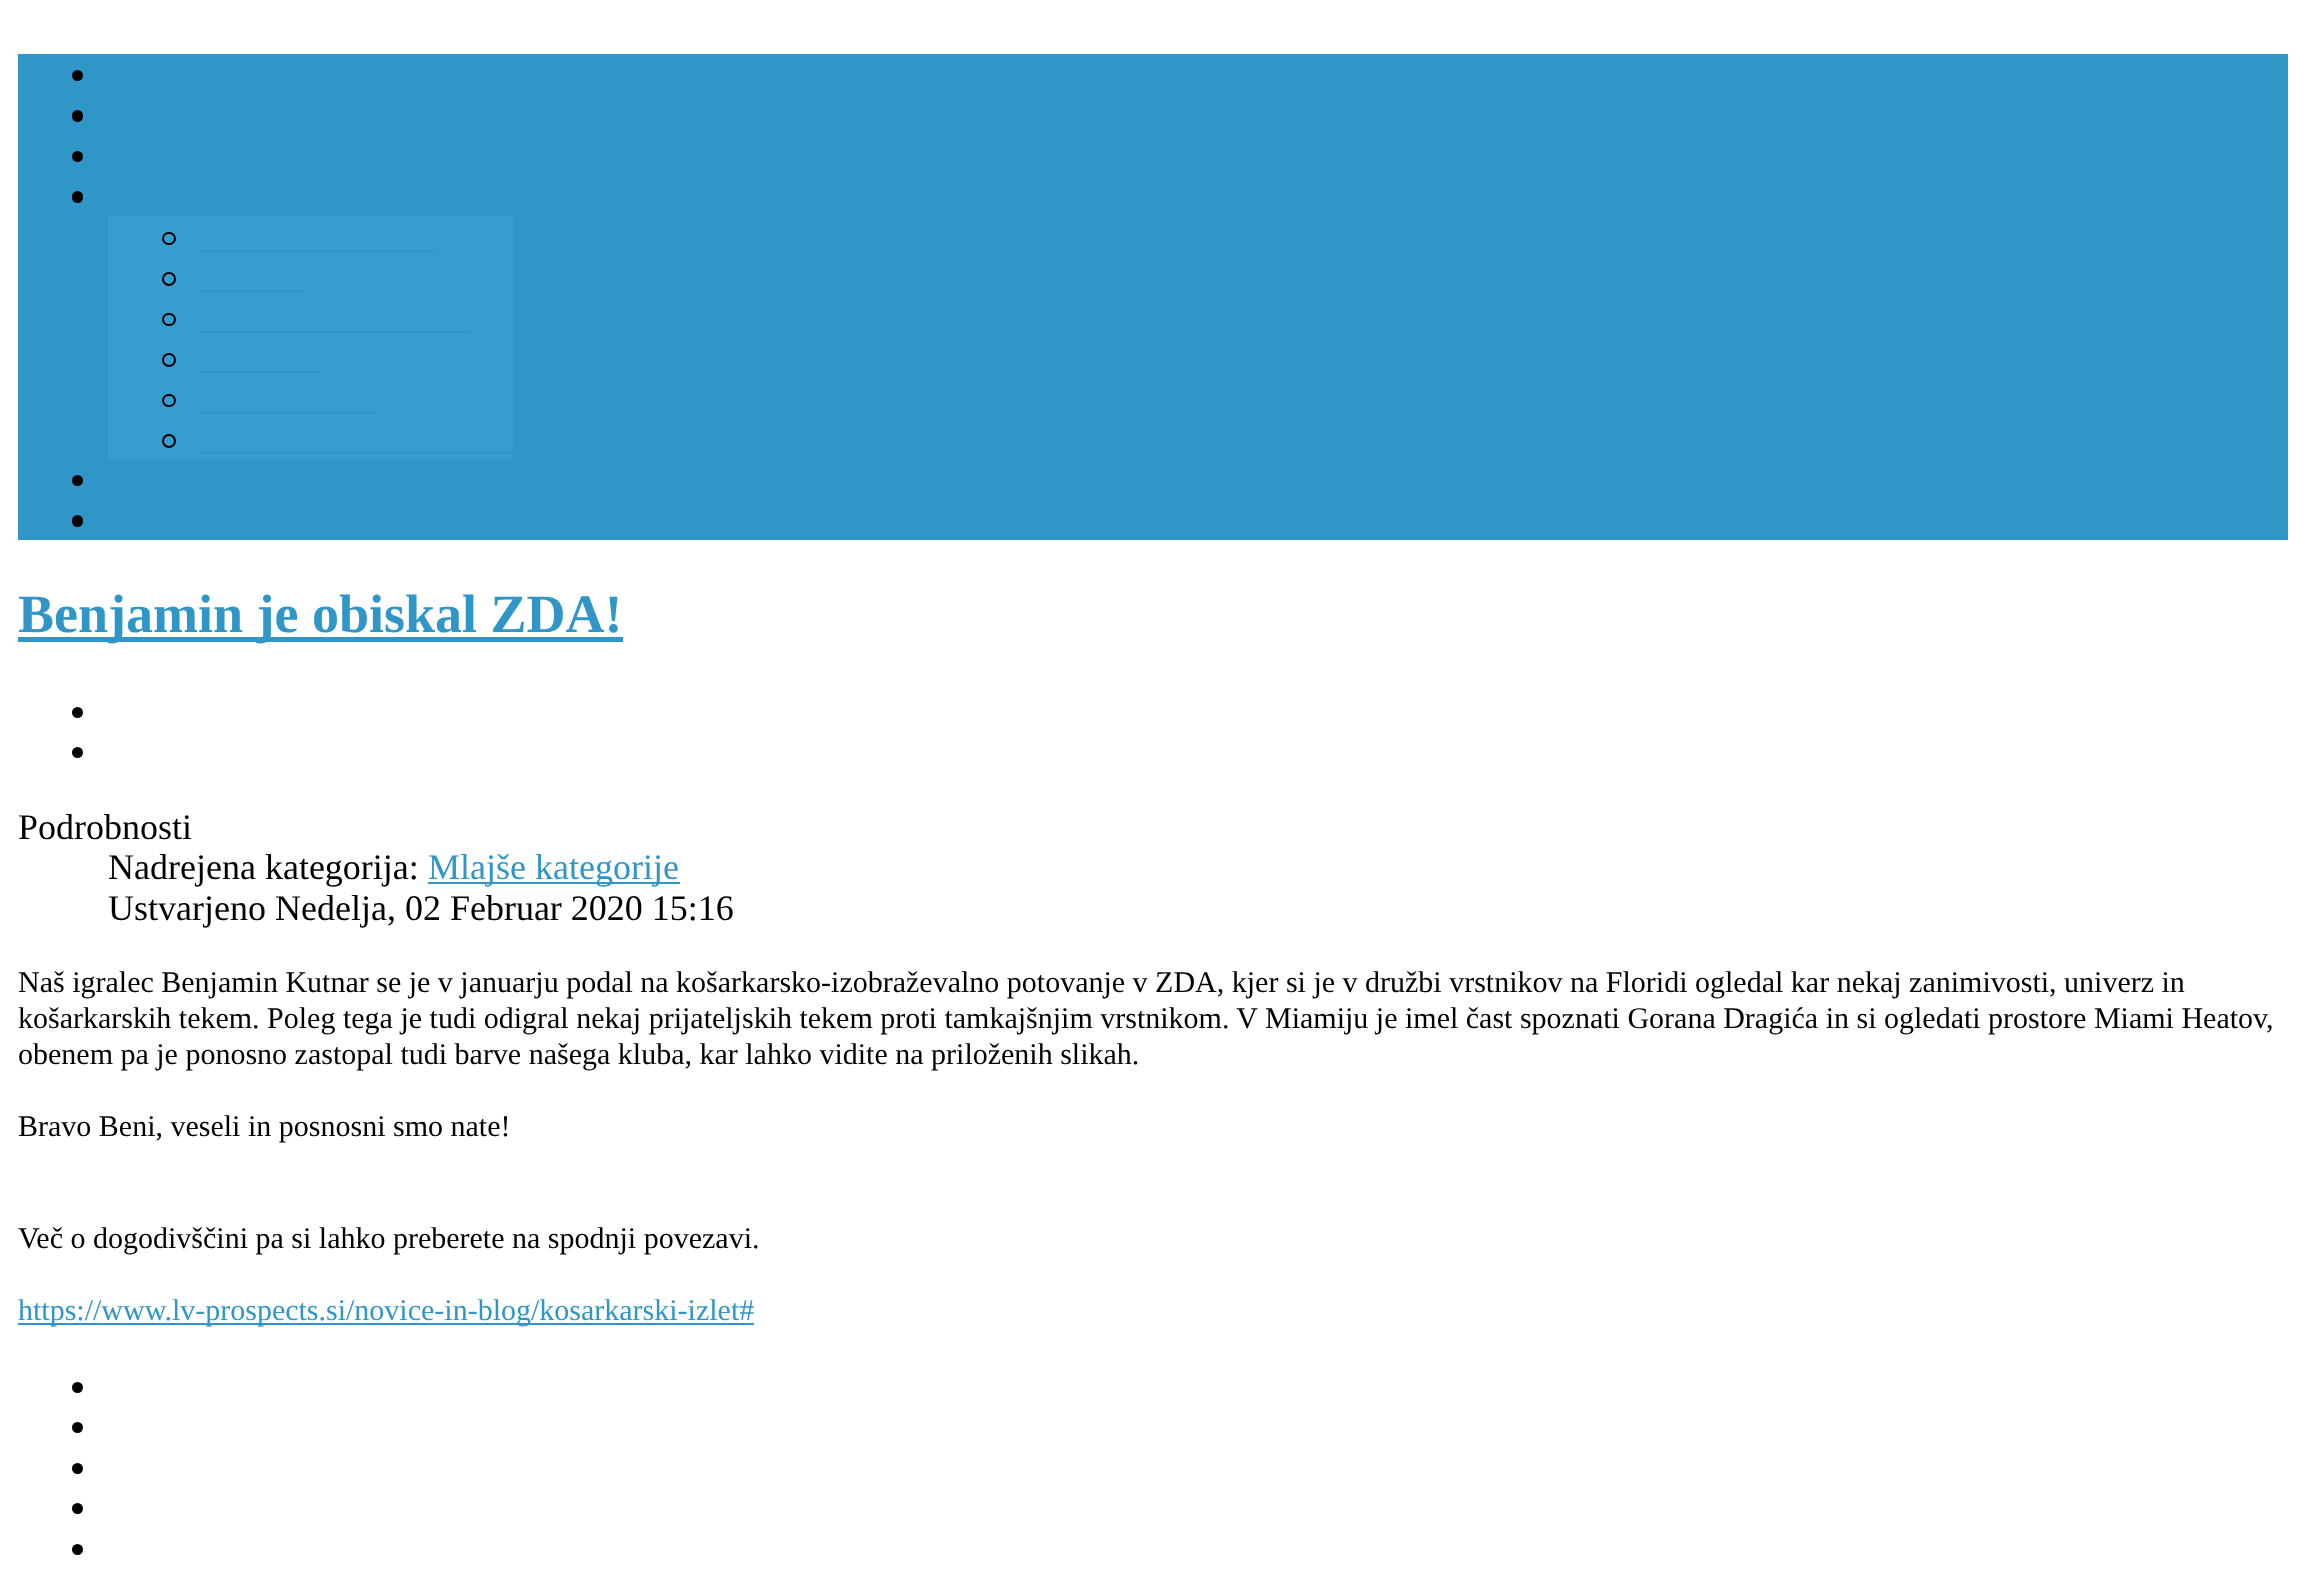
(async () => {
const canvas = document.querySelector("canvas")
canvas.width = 2306
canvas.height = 1591
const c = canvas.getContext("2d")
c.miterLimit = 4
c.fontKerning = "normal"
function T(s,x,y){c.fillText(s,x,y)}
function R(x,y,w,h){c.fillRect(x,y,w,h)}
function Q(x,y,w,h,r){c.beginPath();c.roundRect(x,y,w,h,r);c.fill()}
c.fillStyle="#fff"
R(0,0,2306,1591)
c.fillStyle="#3095c7"
R(18,54,2270,486)
c.fillStyle="#000"
c.beginPath()
c.arc(77.5,75.5,5.5,0,7)
c.fill()
Q(72,110,11,12,5.5)
c.beginPath()
c.arc(77.5,156.5,5.5,0,7)
c.fill()
Q(72,191,11,12,5.5)
c.fillStyle="#379dcf"
R(108,216,405,243)
c.beginPath()
c.roundRect(163,233,12,11,5.5)
c.strokeStyle="#000"
c.lineWidth=2
c.stroke()
c.fillStyle="#3095c7"
R(198,250,239,2)
c.beginPath()
c.arc(169,279,6,0,7)
c.stroke()
R(198,290,106,2)
c.beginPath()
c.roundRect(163,314,12,11,5.5)
c.stroke()
R(198,331,272,2)
c.beginPath()
c.arc(169,360,6,0,7)
c.stroke()
R(198,371,124,2)
c.beginPath()
c.roundRect(163,395,12,11,5.5)
c.stroke()
R(198,412,178,2)
c.beginPath()
c.arc(169,441,6,0,7)
c.stroke()
R(198,452,315,2)
c.fillStyle="#000"
c.beginPath()
c.arc(77.5,480.5,5.5,0,7)
c.fill()
Q(72,515,11,12,5.5)
c.fillStyle="#3095c7"
R(18,637,605,5)
c.font="bold 54px Liberation Serif"
T("Benjamin je obiskal ZDA!",18,632)
c.fillStyle="#000"
c.beginPath()
c.arc(77.5,712.5,5.5,0,7)
c.fill()
c.beginPath()
c.arc(77.5,752.5,5.5,0,7)
c.fill()
c.font="36px Liberation Serif"
T("Podrobnosti",18,839)
T("Nadrejena kategorija:",108,879)
c.fillStyle="#3095c7"
R(428,882,252,2)
T("Mlajše kategorije",428,879)
c.fillStyle="#000"
T("Ustvarjeno Nedelja, 02 Februar 2020 15:16",108,920)
c.font="30px Liberation Serif"
T("Naš igralec Benjamin Kutnar se je v januarju podal na košarkarsko-izobraževalno potovanje v ZDA, kjer si je v družbi vrstnikov na Floridi ogledal kar nekaj zanimivosti, univerz in",18,992)
T("košarkarskih tekem. Poleg tega je tudi odigral nekaj prijateljskih tekem proti tamkajšnjim vrstnikom. V Miamiju je imel čast spoznati Gorana Dragića in si ogledati prostore Miami Heatov,",18,1028)
T("obenem pa je ponosno zastopal tudi barve našega kluba, kar lahko vidite na priloženih slikah.",18,1064)
T("Bravo Beni, veseli in posnosni smo nate!",18,1136)
T("Več o dogodivščini pa si lahko preberete na spodnji povezavi.",18,1248)
c.fillStyle="#3095c7"
R(18,1323,736,2)
T("https://www.lv-prospects.si/novice-in-blog/kosarkarski-izlet#",18,1320)
c.fillStyle="#000"
c.beginPath()
c.arc(77.5,1387.5,5.5,0,7)
c.fill()
c.beginPath()
c.arc(77.5,1427.5,5.5,0,7)
c.fill()
c.beginPath()
c.arc(77.5,1468.5,5.5,0,7)
c.fill()
c.beginPath()
c.arc(77.5,1508.5,5.5,0,7)
c.fill()
c.beginPath()
c.arc(77.5,1549.5,5.5,0,7)
c.fill()
})()
